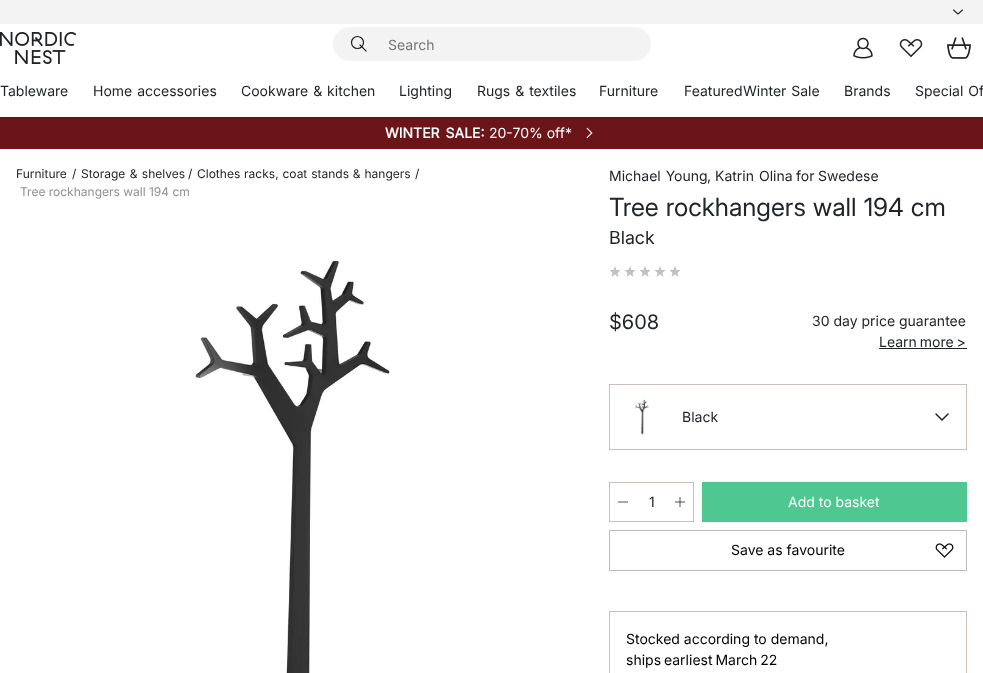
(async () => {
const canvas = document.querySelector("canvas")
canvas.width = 983
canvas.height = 673
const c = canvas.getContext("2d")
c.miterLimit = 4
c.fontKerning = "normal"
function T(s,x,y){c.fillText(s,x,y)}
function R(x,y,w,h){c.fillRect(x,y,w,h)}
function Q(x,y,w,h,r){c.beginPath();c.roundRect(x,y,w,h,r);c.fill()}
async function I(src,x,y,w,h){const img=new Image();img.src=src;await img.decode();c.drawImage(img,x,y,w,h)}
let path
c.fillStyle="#fff"
R(0,0,983,673)
c.fillStyle="#f3f3f3"
R(0,0,983,24)
path = new Path2D("M953.5 10l4.5 4l4.5-4")
c.strokeStyle="#212529"
c.lineWidth=1.1
c.lineCap="round"
c.lineJoin="round"
c.stroke(path)
await I("1.png",0,32,76,32)
Q(333,27,318,34,17)
c.beginPath()
c.arc(357.5,42.5,6,0,7)
c.strokeStyle="#1e2022"
c.lineWidth=1.2
c.stroke()
path = new Path2D("M360 45l6 6")
c.lineCap="square"
c.lineJoin="miter"
c.stroke(path)
c.font="14px Inter"
c.fillStyle="#757575"
T("Search",388,50)
await I("2.png",853,37,20,22)
await I("3.png",899,39,24,19)
await I("4.png",947,37,24,22)
c.fillStyle="#212529"
T("Tableware",0,96)
c.wordSpacing="1px"
T("Home accessories",93,96)
T("Cookware & kitchen",241,96)
c.wordSpacing="0px"
T("Lighting",399,96)
c.wordSpacing="1px"
T("Rugs & textiles",477,96)
c.wordSpacing="0px"
T("Furniture",599,96)
T("Featured",684,96)
c.wordSpacing="1px"
T("Winter Sale",743,96)
c.wordSpacing="0px"
T("Brands",844,96)
c.wordSpacing="1px"
T("Special Of",915,96)
c.fillStyle="#6c1519"
R(0,117,983,32)
c.wordSpacing="2px"
c.font="bold 14px Inter"
c.fillStyle="#fff"
T("WINTER SALE:",385,138)
c.wordSpacing="0px"
c.font="14px Inter"
T("20-70% off*",489,138)
await I("5.png",586,127,7,12)
c.font="12px Inter"
c.fillStyle="#1e2022"
T("Furniture",16,178)
c.fillStyle="#212529"
T("/",72,178)
c.wordSpacing="1px"
c.fillStyle="#1e2022"
T("Storage & shelves",81,178)
c.wordSpacing="0px"
c.fillStyle="#212529"
T("/",188,178)
c.wordSpacing="0.5px"
c.fillStyle="#1e2022"
T("Clothes racks, coat stands & hangers",197,178)
c.wordSpacing="0px"
c.fillStyle="#212529"
T("/",415,178)
c.fillStyle="#8f9091"
T("Tree rockhangers wall 194 cm",20,196)
await I("6.png",195,261,195,412)
c.wordSpacing="1px"
c.font="14px Inter"
c.fillStyle="#212529"
T("Michael Young",609,181)
c.wordSpacing="0px"
T(",",707,181)
c.wordSpacing="1px"
T("Katrin Olina",715,181)
c.wordSpacing="0px"
T("for",796,181)
T("Swedese",818,181)
c.wordSpacing="0.5px"
c.font="25px 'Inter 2'"
T("Tree rockhangers wall 194 cm",609,216)
c.wordSpacing="0px"
c.font="18px 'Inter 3'"
T("Black",609,244)
c.fillStyle="#c1c1c1"
path = new Path2D("M615 274.5l3.5 2.5l-1-4l3-3h-4l-1.5-4l-1.5 4h-4l3 3l-1 4zm15 0l3.5 2.5l-1-4l3-3h-4l-1.5-4l-1.5 4h-4l3 3l-1 4zm15 0l3.5 2.5l-1-4l3-3h-4l-1.5-4l-1.5 4h-4l3 3l-1 4zm15 0l3.5 2.5l-1-4l3-3h-4l-1.5-4l-1.5 4h-4l3 3l-1 4z")
c.fill(path)
path = new Path2D("M675 274.5l3.5 2.5l-1-4l3-3h-4l-1.5-4l-1.5 4h-4l3 3l-1 4z")
c.fill(path)
c.font="20px Inter"
c.fillStyle="#212529"
T("$608",609,329)
c.font="14px Inter"
T("30 day price guarantee",812,326)
c.wordSpacing="-1px"
T("Learn more >",879,347)
R(879,348,88,1)
c.strokeStyle="#c9c0bb"
c.lineWidth=1
c.strokeRect(609.5,384.5,357,65)
await I("7.png",635,399,14,36)
c.wordSpacing="0px"
T("Black",682,422)
path = new Path2D("M936 414l6 6l6-6")
c.strokeStyle="#212529"
c.lineWidth=1.5
c.lineCap="round"
c.lineJoin="round"
c.stroke(path)
c.strokeStyle="#c9c0bb"
c.lineWidth=1
c.lineJoin="miter"
c.strokeRect(609.5,482.5,84,39)
path = new Path2D("M618 502h10")
c.strokeStyle="#212529"
c.lineWidth=0.8
c.lineCap="butt"
c.stroke(path)
T("1",649,507)
path = new Path2D("M680 497v10m-5-5h10")
c.stroke(path)
c.fillStyle="#4ec791"
R(702,482,265,40)
c.fillStyle="#fff"
T("Add to basket",788,507)
c.strokeStyle="#bbbcbc"
c.lineWidth=1
c.strokeRect(609.5,530.5,357,40)
c.fillStyle="#000"
T("Save as favourite",731,555)
await I("8.png",935,543,19,15)
c.strokeStyle="#c9c0bb"
c.strokeRect(609.5,611.5,357,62)
T("Stocked according to demand,",626,644)
c.wordSpacing="-1px"
T("ships earliest March 22",626,665)
})()
